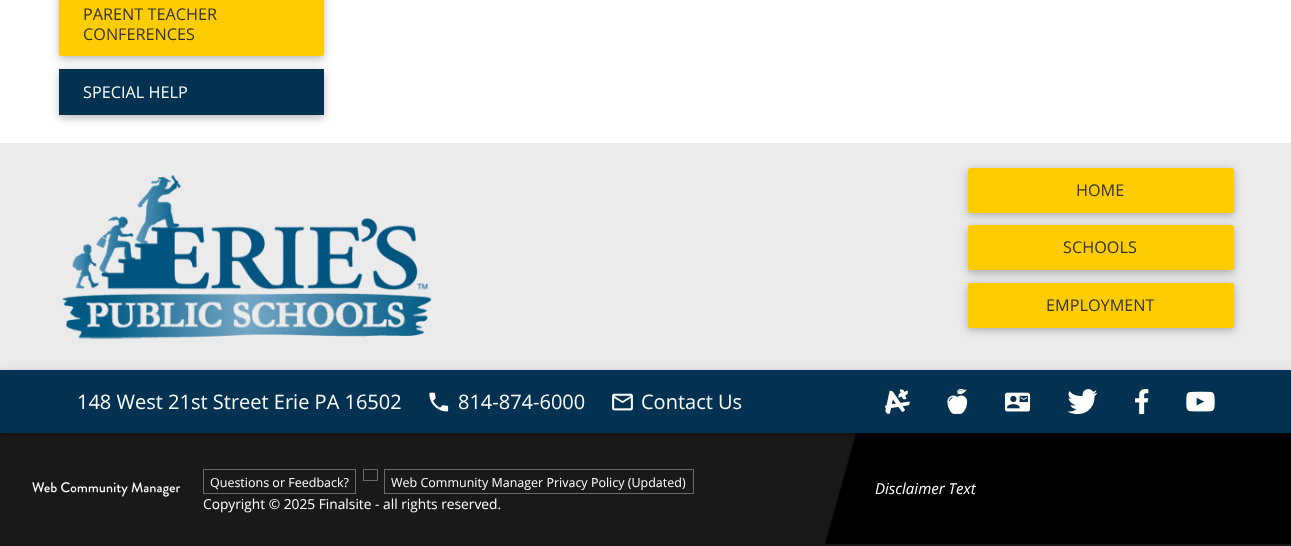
(async () => {
const canvas = document.querySelector("canvas")
canvas.width = 1291
canvas.height = 546
const c = canvas.getContext("2d")
c.miterLimit = 4
c.fontKerning = "normal"
function T(s,x,y){c.fillText(s,x,y)}
function R(x,y,w,h){c.fillRect(x,y,w,h)}
function Q(x,y,w,h,r){c.beginPath();c.roundRect(x,y,w,h,r);c.fill()}
async function I(src,x,y,w,h){const img=new Image();img.src=src;await img.decode();c.drawImage(img,x,y,w,h)}
c.fillStyle="#fff"
R(0,0,1291,546)
c.fillStyle="#0000001f"
c.filter="blur(6px)"
c.beginPath()
c.roundRect(59,-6,265,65,2.5)
c.fill()
c.filter="none"
c.fillStyle="#00000029"
c.filter="blur(3px)"
c.beginPath()
c.roundRect(59,-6,265,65,2.5)
c.fill()
c.filter="none"
c.fillStyle="#fc0"
Q(59,-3,265,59,2.5)
c.font="16.25px Open Sans"
c.fillStyle="#313131"
T("PARENT TEACHER",83,20)
T("CONFERENCES",83,40)
c.fillStyle="#0000001f"
c.filter="blur(6px)"
c.beginPath()
c.roundRect(59,71,265,47,2.5)
c.fill()
c.filter="none"
c.fillStyle="#00000029"
c.filter="blur(3px)"
c.beginPath()
c.roundRect(59,71,265,47,2.5)
c.fill()
c.filter="none"
c.fillStyle="#023152"
R(59,69,265,46)
c.fillStyle="#fff"
T("SPECIAL HELP",83,98)
c.fillStyle="#ebebeb"
R(0,143,1291,227)
await I("1.png",62,175,370,164)
c.fillStyle="#0000001f"
c.filter="blur(6px)"
c.beginPath()
c.roundRect(968,170,266,45,2.5)
c.fill()
c.filter="none"
c.fillStyle="#00000029"
c.filter="blur(3px)"
c.beginPath()
c.roundRect(968,170,266,45,2.5)
c.fill()
c.filter="none"
c.fillStyle="#fc0"
Q(968,168,266,45,2.5)
c.fillStyle="#313131"
T("HOME",1076,196)
c.fillStyle="#0000001f"
c.filter="blur(6px)"
c.beginPath()
c.roundRect(968,228,266,45,2.5)
c.fill()
c.filter="none"
c.fillStyle="#00000029"
c.filter="blur(3px)"
c.beginPath()
c.roundRect(968,228,266,45,2.5)
c.fill()
c.filter="none"
c.fillStyle="#fc0"
Q(968,225,266,45,2.5)
c.fillStyle="#313131"
T("SCHOOLS",1063,253)
c.fillStyle="#0000001f"
c.filter="blur(6px)"
c.beginPath()
c.roundRect(968,285,266,45,2.5)
c.fill()
c.filter="none"
c.fillStyle="#00000029"
c.filter="blur(3px)"
c.beginPath()
c.roundRect(968,285,266,45,2.5)
c.fill()
c.filter="none"
c.fillStyle="#fc0"
Q(968,283,266,45,2.5)
c.fillStyle="#313131"
T("EMPLOYMENT",1046,311)
c.fillStyle="#19191a"
R(0,433,1291,113)
c.fillStyle="#000"
R(856,433,435,111)
await I("11.png",825,433,31,111)
c.fillStyle="#0000001f"
c.filter="blur(6px)"
c.beginPath()
c.rect(0,373,1291,62)
c.fill()
c.filter="none"
c.fillStyle="#00000029"
c.filter="blur(3px)"
c.beginPath()
c.rect(0,373,1291,62)
c.fill()
c.filter="none"
c.fillStyle="#023152"
R(0,370,1291,63)
c.font="20px Open Sans"
c.fillStyle="#fff"
T("148 West 21st Street Erie PA 16502",77,409)
await I("2.png",429,392,20,20)
T("814-874-6000",458,409)
await I("3.png",612,393,21,18)
T("Contact Us",641,409)
await I("4.png",885,389,25,25)
await I("5.png",947,389,21,25)
await I("6.png",1005,392,25,20)
await I("7.png",1067,389,31,26)
await I("8.png",1135,389,14,26)
await I("9.png",1186,391,29,21)
await I("10.png",32,482,149,15)
c.strokeStyle="#6a6a6a"
c.strokeRect(363.5,469.5,14,11)
c.strokeRect(203.5,469.5,152,24)
c.font="12.5px Open Sans"
T("Questions or Feedback?",210,487)
c.strokeRect(384.5,469.5,309,24)
T("Web Community Manager Privacy Policy (Updated)",391,487)
c.font="13.75px Open Sans"
T("Copyright © 2025 Finalsite - all rights reserved.",203,509)
c.font="italic 15px Open Sans"
T("Disclaimer Text",875,494)
})()
